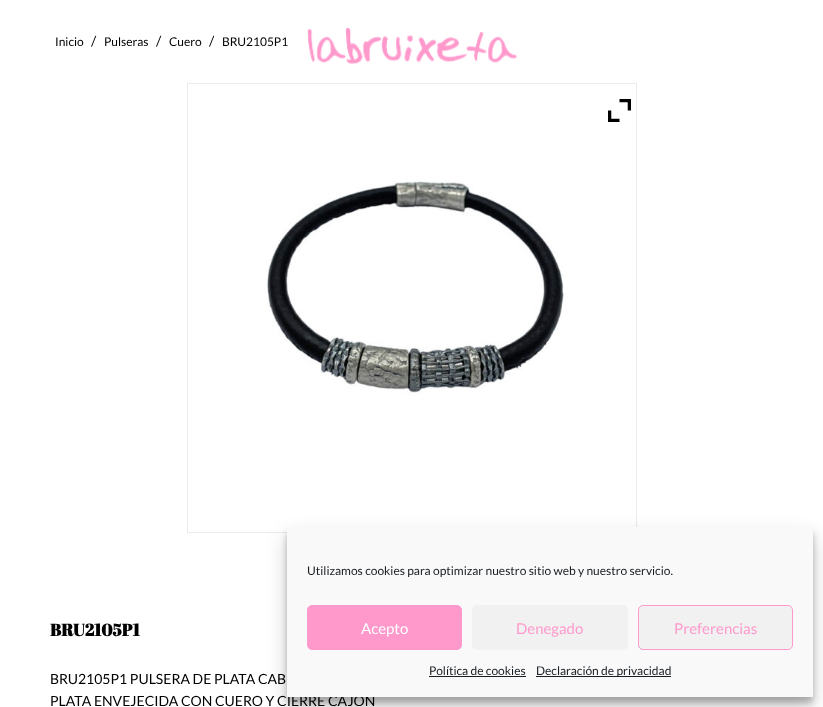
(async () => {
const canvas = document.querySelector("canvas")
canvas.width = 823
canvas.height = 707
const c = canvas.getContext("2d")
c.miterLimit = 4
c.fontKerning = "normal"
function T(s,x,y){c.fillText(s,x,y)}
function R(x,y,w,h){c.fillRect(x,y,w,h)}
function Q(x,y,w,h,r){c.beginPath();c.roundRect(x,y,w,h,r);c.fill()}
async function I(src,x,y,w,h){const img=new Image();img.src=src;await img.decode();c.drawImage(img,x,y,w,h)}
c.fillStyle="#fff"
R(0,0,823,707)
c.font="12px Lato"
c.fillStyle="#000"
T("Inicio",55,46)
c.font="14px Lato"
T("/",91,46)
c.font="12px Lato"
T("Pulseras",104,46)
c.font="14px Lato"
T("/",156,46)
c.font="12px Lato"
T("Cuero",169,46)
c.font="14px Lato"
T("/",209,46)
c.font="12px Lato"
T("BRU2105P1",222,46)
c.strokeStyle="#ebece7"
c.strokeRect(187.5,83.5,449,449)
await I("1.png",266,180,298,215)
await I("2.png",608,99,23,23)
c.font="bold 17px Abril Fatface"
T("BRU2105P1",50,636)
c.font="14px Lato"
T("BRU2105P1 PULSERA DE PLATA CAB",50,684)
T("PLATA ENVEJECIDA CON CUERO Y CIERRE CAJÓN",50,706)
await I("3.png",307,28,210,36)
c.fillStyle="#0000003b"
c.filter="blur(3px)"
c.beginPath()
c.rect(287,533,526,170)
c.fill()
c.filter="none"
c.fillStyle="#00000030"
c.filter="blur(10px)"
c.beginPath()
c.rect(287,537,526,170)
c.fill()
c.filter="none"
c.fillStyle="#f9f9f9"
R(287,527,526,170)
c.font="12px Lato"
c.fillStyle="#191e23"
T("Utilizamos cookies para optimizar nuestro sitio web y nuestro servicio.",307,575)
c.fillStyle="#f9c"
c.beginPath()
c.roundRect(307.5,605.5,154,44,4.5)
c.fill()
c.strokeStyle="#f9c"
c.stroke()
c.font="15px Lato"
c.fillStyle="#fff"
T("Acepto",361,634)
c.fillStyle="#f1f1f1"
Q(472,605,156,45,5)
c.fillStyle="#f9c"
T("Denegado",516,634)
c.fillStyle="#f1f1f1"
c.beginPath()
c.roundRect(638.5,605.5,154,44,4.5)
c.fill()
c.stroke()
c.fillStyle="#f9c"
T("Preferencias",674,634)
c.font="12px Lato"
c.fillStyle="#191e23"
T("Política de cookies",429,675)
R(429,676,97,1)
R(536,676,135,1)
T("Declaración de privacidad",536,675)
})()
